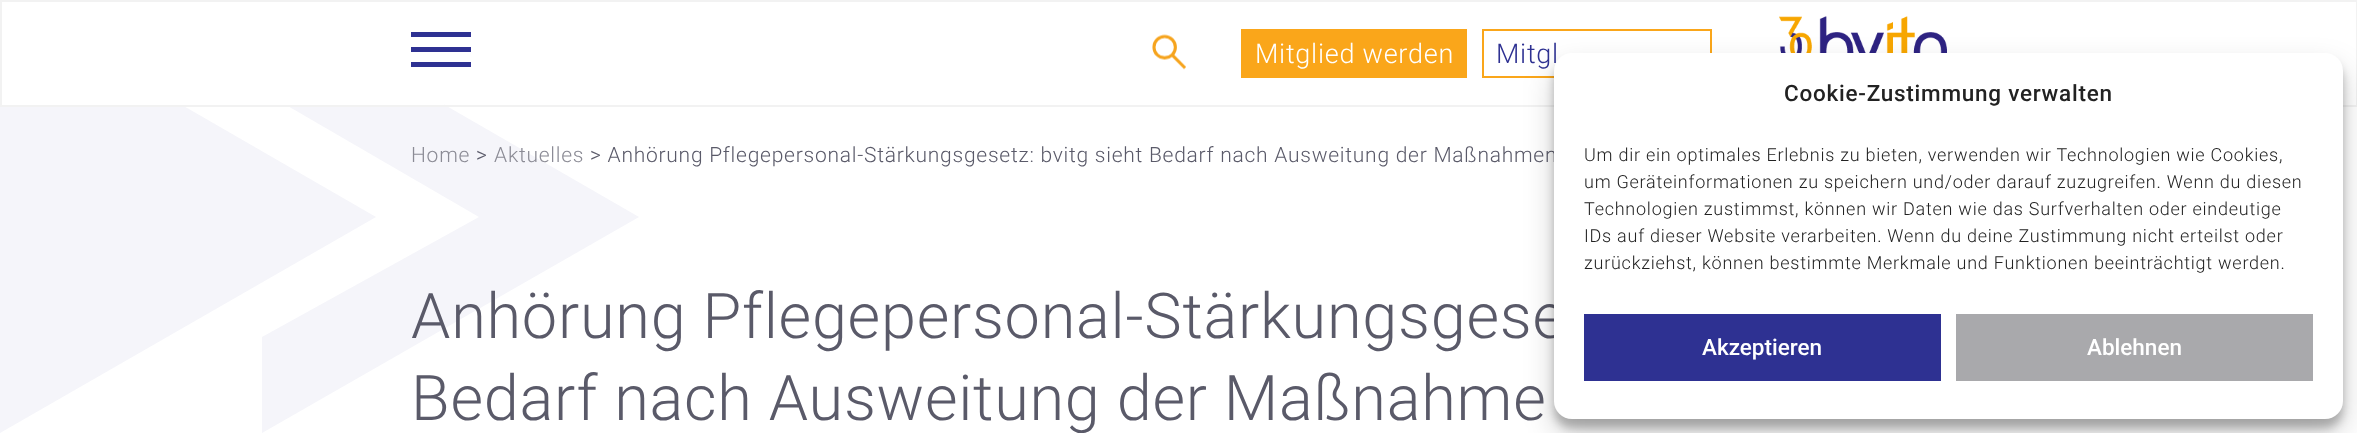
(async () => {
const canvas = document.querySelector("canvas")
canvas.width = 2357
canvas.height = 433
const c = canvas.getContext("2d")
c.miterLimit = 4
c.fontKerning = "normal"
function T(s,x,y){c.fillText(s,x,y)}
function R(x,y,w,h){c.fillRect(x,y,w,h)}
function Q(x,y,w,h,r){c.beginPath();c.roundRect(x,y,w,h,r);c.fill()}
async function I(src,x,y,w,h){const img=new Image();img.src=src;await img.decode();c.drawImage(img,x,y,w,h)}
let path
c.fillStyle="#fff"
R(0,0,2357,433)
c.fillStyle="#f5f5fa"
path = new Path2D("M0 217v-217l376 217l-376 216z")
c.fill(path)
path = new Path2D("M450 108l-188-108v91l217 126l-217 120v96l377-216z")
c.fill(path)
c.fillStyle="#fff"
R(2,2,442,103)
c.strokeStyle="#f2f2f2"
c.lineWidth=2
c.strokeRect(1,1,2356,105)
c.fillStyle="#2e3192"
R(411,47,60,5)
R(411,32,60,5)
R(411,62,60,5)
await I("1.png",1152,34,34,36)
c.fillStyle="#faa61a"
R(1241,29,226,49)
c.letterSpacing="0.75px"
c.font="300 27px Roboto"
c.fillStyle="#fff"
T("Mitglied werden",1255,63)
c.strokeStyle="#faa61a"
c.strokeRect(1483,30,228,47)
c.fillStyle="#2e3192"
T("Mitgl",1496,63)
await I("2.png",1779,16,168,37)
c.font="300 21px Roboto"
c.fillStyle="#8b8b95"
T("Home",411,162)
c.fillStyle="#5a5a69"
T(">",476,162)
c.fillStyle="#8b8b95"
T("Aktuelles",494,162)
c.fillStyle="#5a5a69"
T("> Anhörung Pflegepersonal-Stärkungsgesetz: bvitg sieht Bedarf nach Ausweitung der Maßnahmen",590,162)
c.font="300 63px Roboto"
T("Anhörung Pflegepersonal-Stärkungsgese",411,338)
T("Bedarf nach Ausweitung der Maßnahme",411,420)
c.fillStyle="#0000003b"
c.filter="blur(4.5px)"
c.beginPath()
c.roundRect(1554,62,789,366,18)
c.fill()
c.filter="none"
c.fillStyle="#00000030"
c.filter="blur(15px)"
c.beginPath()
c.roundRect(1554,68,789,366,18)
c.fill()
c.filter="none"
c.fillStyle="#fff"
Q(1554,53,789,366,18)
c.font="500 22.5px Roboto"
c.fillStyle="#222"
T("Cookie-Zustimmung verwalten",1784,101)
c.font="300 18px Roboto"
T("Um dir ein optimales Erlebnis zu bieten, verwenden wir Technologien wie Cookies,",1584,161)
T("um Geräteinformationen zu speichern und/oder darauf zuzugreifen. Wenn du diesen",1584,188)
T("Technologien zustimmst, können wir Daten wie das Surfverhalten oder eindeutige",1584,215)
T("IDs auf dieser Website verarbeiten. Wenn du deine Zustimmung nicht erteilst oder",1584,242)
T("zurückziehst, können bestimmte Merkmale und Funktionen beeinträchtigt werden.",1584,269)
c.fillStyle="#2e3192"
R(1584,314,357,67)
c.letterSpacing="0px"
c.font="500 22.5px Roboto"
c.fillStyle="#fff"
T("Akzeptieren",1702,355)
c.fillStyle="#a9a9ac"
R(1956,314,357,67)
c.fillStyle="#fff"
T("Ablehnen",2087,355)
})()
